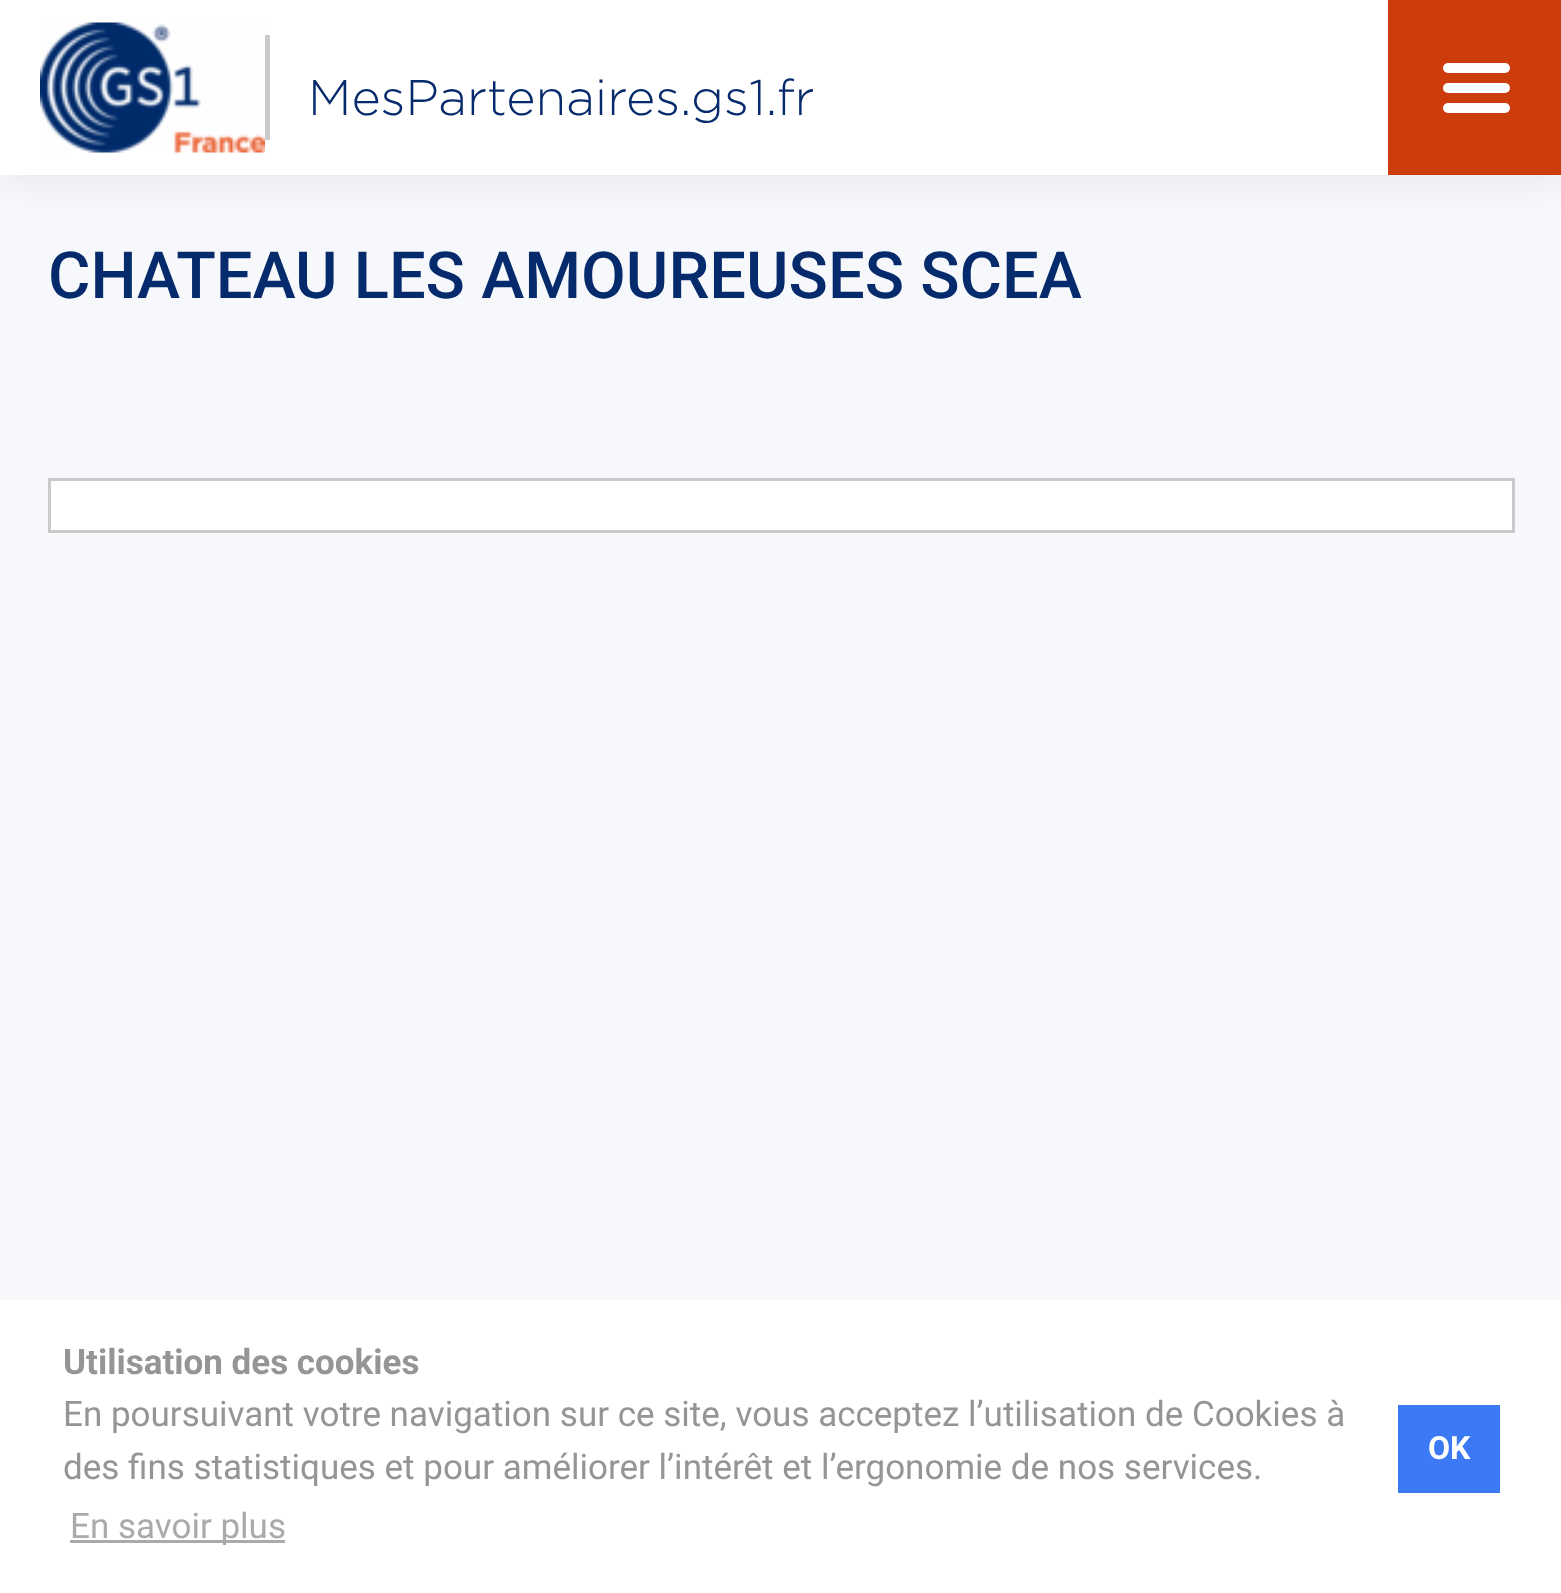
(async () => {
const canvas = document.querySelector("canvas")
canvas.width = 1561
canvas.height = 1593
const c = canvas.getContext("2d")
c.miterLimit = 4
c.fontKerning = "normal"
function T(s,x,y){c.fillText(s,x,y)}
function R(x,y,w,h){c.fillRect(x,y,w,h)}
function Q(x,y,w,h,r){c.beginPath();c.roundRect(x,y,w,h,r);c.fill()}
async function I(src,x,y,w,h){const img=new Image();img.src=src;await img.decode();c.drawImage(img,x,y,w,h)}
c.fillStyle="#f7f8fb"
R(0,0,1561,1593)
c.fillStyle="#57585a1a"
c.filter="blur(17.5px)"
c.beginPath()
c.rect(0,5,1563,175)
c.fill()
c.filter="none"
c.fillStyle="#fff"
R(0,0,1388,175)
await I("1.png",40,22,225,131)
c.fillStyle="#cacaca"
R(265,35,5,105)
c.font="300 50px Gotham"
c.fillStyle="#052b6c"
T("MesPartenaires.gs1.fr",308,115)
c.fillStyle="#cd3c0d"
R(1388,0,173,175)
c.fillStyle="#fff"
Q(1443,63,67,10,5)
Q(1443,83,67,10,5)
Q(1443,103,67,10,5)
c.font="500 65px Roboto"
c.fillStyle="#052b6c"
T("CHATEAU LES AMOUREUSES SCEA",48,298)
c.fillStyle="#fff"
c.beginPath()
c.rect(49.5,479.5,1464,52)
c.fill()
c.strokeStyle="#cacaca"
c.lineWidth=3
c.stroke()
R(0,1300,1561,293)
c.font="bold 35px Roboto"
c.fillStyle="#949597"
T("Utilisation des cookies",63,1374)
c.font="35px Roboto"
T("En poursuivant votre navigation sur ce site, vous acceptez l’utilisation de Cookies à",63,1426)
T("des fins statistiques et pour améliorer l’intérêt et l’ergonomie de nos services.",63,1479)
c.fillStyle="#a9aaac"
R(70,1540,215,3)
T("En savoir plus",70,1538)
c.fillStyle="#3b7af4"
R(1398,1405,102,88)
c.font="bold 32px Roboto"
c.fillStyle="#fff"
T("OK",1428,1459)
})()
